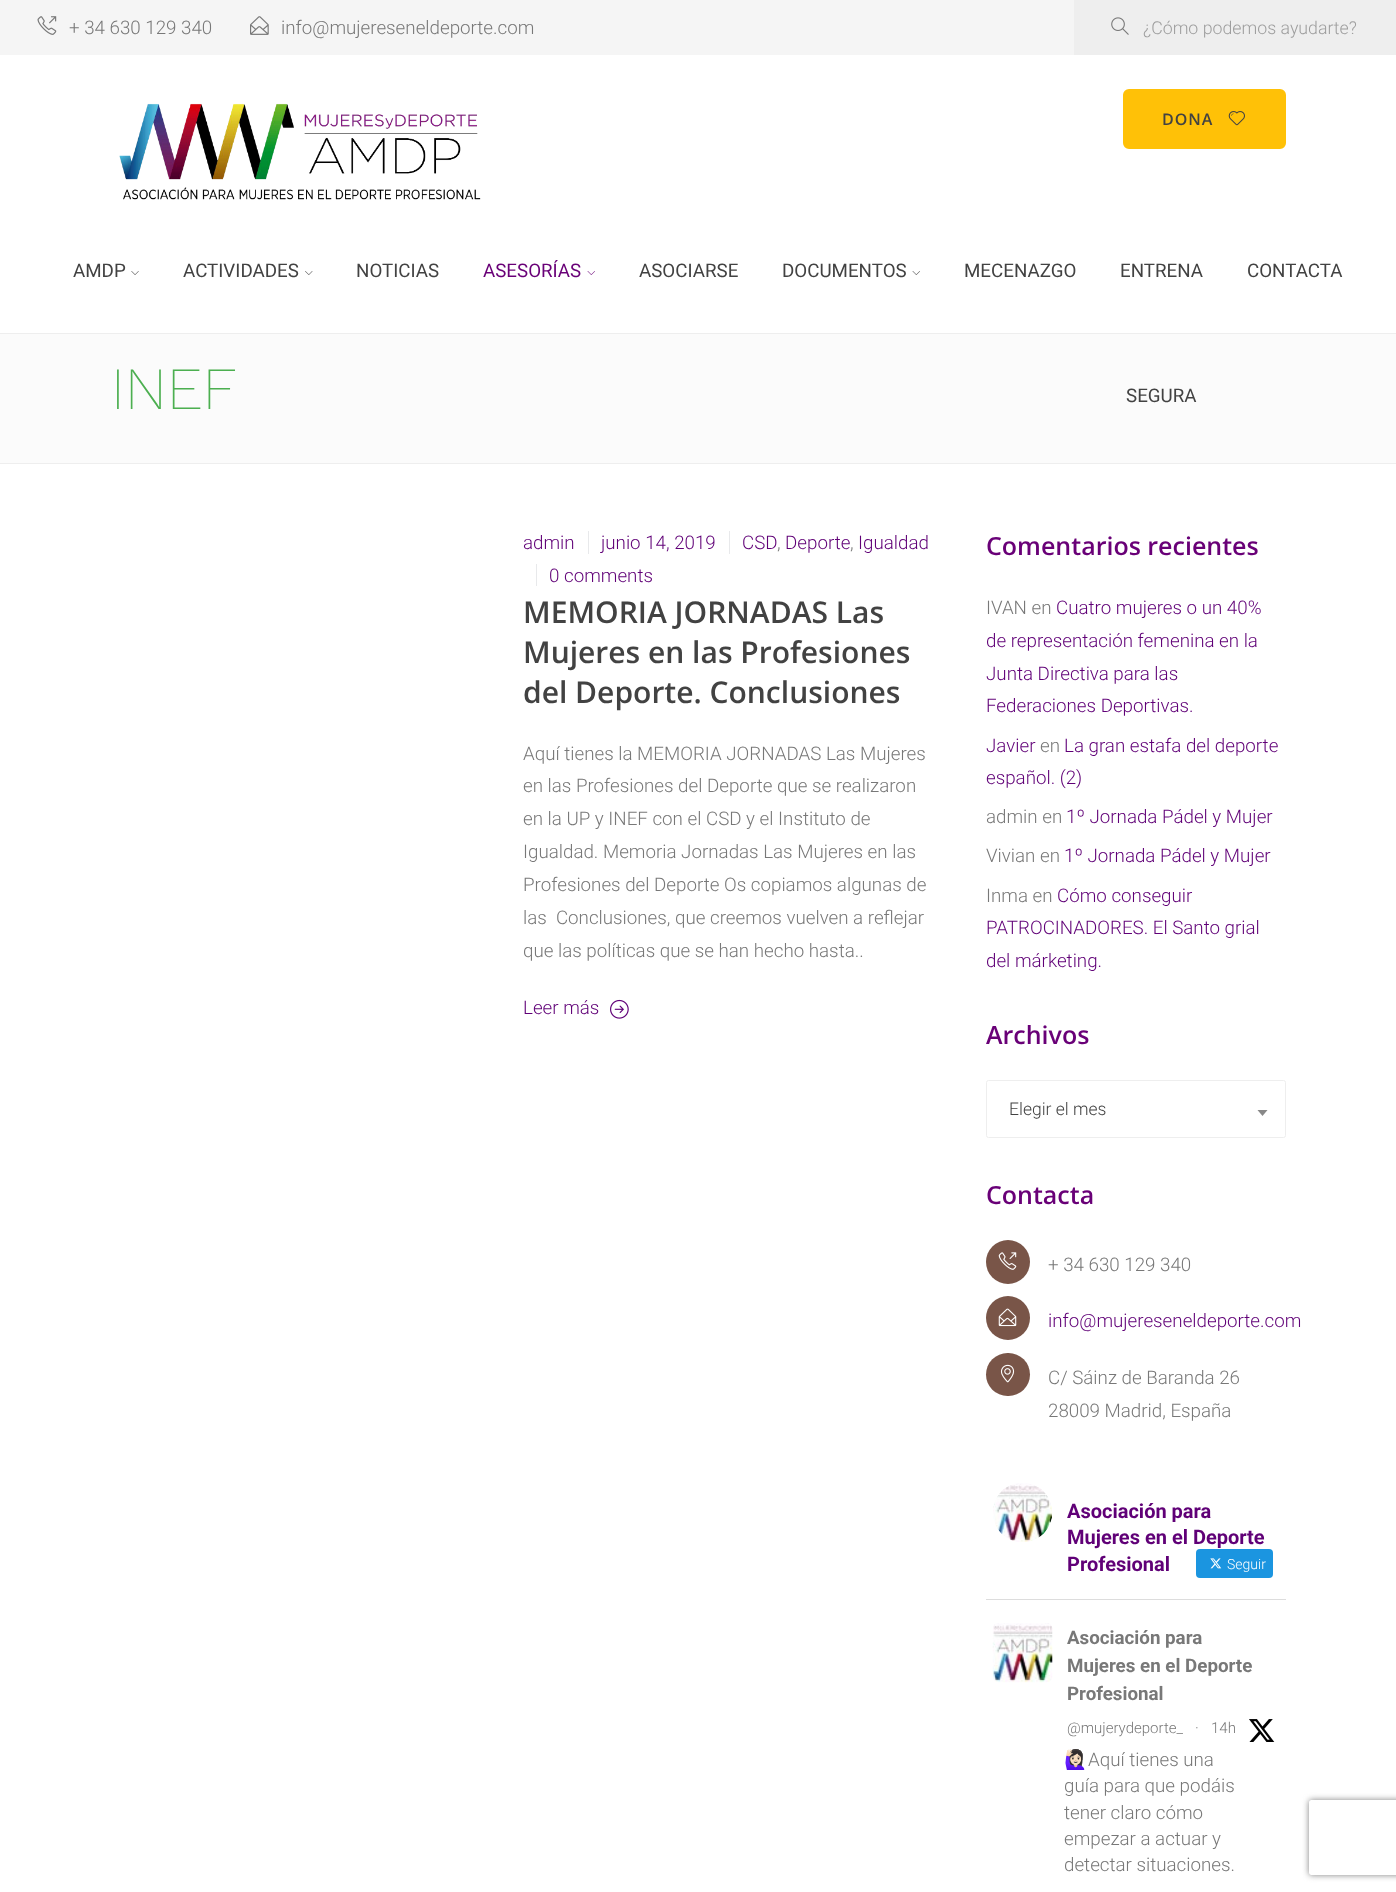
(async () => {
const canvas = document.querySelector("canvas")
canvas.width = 1396
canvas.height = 1892
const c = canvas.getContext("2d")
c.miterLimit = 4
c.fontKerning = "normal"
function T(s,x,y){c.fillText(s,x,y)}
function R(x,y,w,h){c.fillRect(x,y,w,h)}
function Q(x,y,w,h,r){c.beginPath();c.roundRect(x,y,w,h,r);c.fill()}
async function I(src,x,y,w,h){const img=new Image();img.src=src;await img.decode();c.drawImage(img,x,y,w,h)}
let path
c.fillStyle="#fff"
R(0,0,1396,1892)
c.fillStyle="#f5f5f5"
R(0,0,1074,55)
await I("1.png",37,16,20,19)
c.font="300 18.75px Roboto"
c.fillStyle="#787878"
T("+ 34 630 129 340",69,34)
await I("2.png",250,16,19,19)
T("info@mujereseneldeporte.com",281,34)
c.fillStyle="#eee"
R(1074,0,322,55)
await I("3.png",1111,17,18,18)
c.font="300 17.75px Roboto"
c.fillStyle="#9e9e9e"
T("¿Cómo podemos ayudarte?",1143,34)
await I("4.png",119,103,362,97)
c.fillStyle="#ffc107"
c.beginPath()
c.roundRect(1124.5,90.5,160,57,4.5)
c.fill()
c.strokeStyle="#ffc107"
c.lineWidth=3
c.stroke()
c.letterSpacing="1px"
c.font="600 16px Open Sans"
c.fillStyle="#424242"
T("DONA",1162,125)
await I("5.png",1228,111,17,15)
c.letterSpacing="0px"
c.font="18.75px Roboto"
T("AMDP",73,277)
await I("6.png",131,271,8,4)
T("ACTIVIDADES",183,277)
await I("7.png",305,271,8,4)
T("NOTICIAS",356,277)
c.fillStyle="#690077"
T("ASESORÍAS",483,277)
await I("8.png",587,271,8,4)
c.fillStyle="#424242"
T("ASOCIARSE",639,277)
T("DOCUMENTOS",782,277)
await I("9.png",912,271,8,4)
T("MECENAZGO",964,277)
T("ENTRENA",1120,277)
c.fillStyle="#fbfbfb"
R(0,334,1396,129)
c.fillStyle="#424242"
T("SEGURA",1126,402)
T("CONTACTA",1247,277)
c.fillStyle="#eee"
R(0,333,1396,1)
R(0,463,1396,1)
c.font="200 60px Work Sans"
c.fillStyle="#4caf50"
T("INEF",111,409)
c.font="300 18.75px Roboto"
c.fillStyle="#600077"
T("admin",523,549)
c.fillStyle="#e8e9eb"
R(588,531,1,23)
c.fillStyle="#600077"
T("junio 14, 2019",601,549)
c.fillStyle="#e8e9eb"
R(729,531,1,23)
c.fillStyle="#600077"
T("CSD",742,549)
c.fillStyle="#787878"
T(",",777,549)
c.fillStyle="#600077"
T("Deporte",785,549)
c.fillStyle="#787878"
T(",",850,549)
c.fillStyle="#600077"
T("Igualdad",858,549)
T("0 comments",549,582)
c.fillStyle="#e8e9eb"
R(536,564,1,22)
c.font="600 30px Open Sans"
c.fillStyle="#424242"
T("MEMORIA JORNADAS Las",523,623)
T("Mujeres en las Profesiones",523,663)
T("del Deporte. Conclusiones",523,703)
c.font="300 18.75px Roboto"
c.fillStyle="#787878"
T("Aquí tienes la MEMORIA JORNADAS Las Mujeres",523,760)
T("en las Profesiones del Deporte que se realizaron",523,792)
T("en la UP y INEF con el CSD y el Instituto de",523,825)
T("Igualdad. Memoria Jornadas Las Mujeres en las",523,858)
T("Profesiones del Deporte Os copiamos algunas de",523,891)
T("las  Conclusiones, que creemos vuelven a reflejar",523,924)
T("que las políticas que se han hecho hasta..",523,957)
c.fillStyle="#600077"
T("Leer más",523,1014)
await I("10.png",610,999,19,20)
c.font="600 25px Open Sans"
c.fillStyle="#690077"
T("Comentarios recientes",986,555)
c.font="300 18.75px Roboto"
c.fillStyle="#787878"
T("IVAN en",986,614)
c.fillStyle="#600077"
T("Cuatro mujeres o un 40%",1056,614)
T("de representación femenina en la",986,647)
T("Junta Directiva para las",986,680)
T("Federaciones Deportivas.",986,712)
T("Javier",986,752)
c.fillStyle="#787878"
T("en",1040,752)
c.fillStyle="#600077"
T("La gran estafa del deporte",1064,752)
T("español. (2)",986,784)
c.fillStyle="#787878"
T("admin en",986,823)
c.fillStyle="#600077"
T("1º Jornada Pádel y Mujer",1066,823)
c.fillStyle="#787878"
T("Vivian en",986,862)
c.fillStyle="#600077"
T("1º Jornada Pádel y Mujer",1064,862)
c.fillStyle="#787878"
T("Inma en",986,902)
c.fillStyle="#600077"
T("Cómo conseguir",1057,902)
T("PATROCINADORES. El Santo grial",986,934)
T("del márketing.",986,967)
c.font="600 25px Open Sans"
c.fillStyle="#690077"
T("Archivos",986,1044)
c.beginPath()
c.roundRect(986.5,1080.5,299,57,2)
c.strokeStyle="#eee"
c.lineWidth=1
c.stroke()
c.font="300 17.5px Roboto"
c.fillStyle="#424242"
T("Elegir el mes",1009,1115)
c.fillStyle="#888"
path = new Path2D("M1257.5 1110h10l-5 6z")
c.fill(path)
c.font="600 25px Open Sans"
c.fillStyle="#690077"
T("Contacta",986,1204)
c.fillStyle="#795548"
c.beginPath()
c.arc(1008,1262,22,0,7)
c.fill()
await I("11.png",998,1252,19,18)
c.font="300 18.75px Roboto"
c.fillStyle="#787878"
T("+ 34 630 129 340",1048,1271)
c.fillStyle="#795548"
c.beginPath()
c.arc(1008,1318,22,0,7)
c.fill()
await I("12.png",998,1308,19,19)
c.fillStyle="#600077"
T("info@mujereseneldeporte.com",1048,1327)
c.fillStyle="#795548"
Q(986,1353,44,43,21.5)
await I("13.png",1000,1364,15,19)
c.fillStyle="#787878"
T("C/ Sáinz de Baranda 26",1048,1384)
T("28009 Madrid, España",1048,1417)
c.fillStyle="#ddd"
R(986,1599,300,1)
await I("14.png",993,1483,59,59)
c.font="bold 20px Roboto"
c.fillStyle="#600077"
T("Asociación para",1067,1518)
T("Mujeres en el Deporte",1067,1544)
T("Profesional",1067,1571)
c.fillStyle="#1b95e0"
Q(1196,1549,77,29,4)
await I("15.png",1210,1558,12,11)
c.font="300 14px Roboto"
c.fillStyle="#fff"
T("Seguir",1227,1569)
await I("16.png",992,1623,61,60)
c.font="bold 18.75px Roboto"
c.fillStyle="#787878"
T("Asociación para",1067,1644)
T("Mujeres en el Deporte",1067,1672)
T("Profesional",1067,1700)
c.font="300 15px Roboto"
T("@mujerydeporte_",1067,1733)
T("·",1195,1733)
T("14h",1211,1733)
await I("17.png",1249,1719,26,23)
c.font="18.75px Noto Color Emoji"
T("🙋🏻‍♀️",1064,1766)
c.font="300 18.75px Roboto"
T("Aquí tienes una",1088,1766)
T("guía para que podáis",1064,1792)
T("tener claro cómo",1064,1819)
T("empezar a actuar y",1064,1845)
T("detectar situaciones.",1064,1871)
c.save()
path = new Path2D("M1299 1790h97v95h-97zm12.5 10h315c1.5 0 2.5 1 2.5 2.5v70c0 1.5-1 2.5-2.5 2.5h-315c-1.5 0-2.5-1-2.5-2.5v-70c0-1.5 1-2.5 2.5-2.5z")
c.clip(path,"evenodd")
c.fillStyle="#808080"
c.filter="blur(3px)"
c.beginPath()
c.roundRect(1309,1800,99,75,2.5)
c.fill()
c.filter="none"
c.restore()
})()
